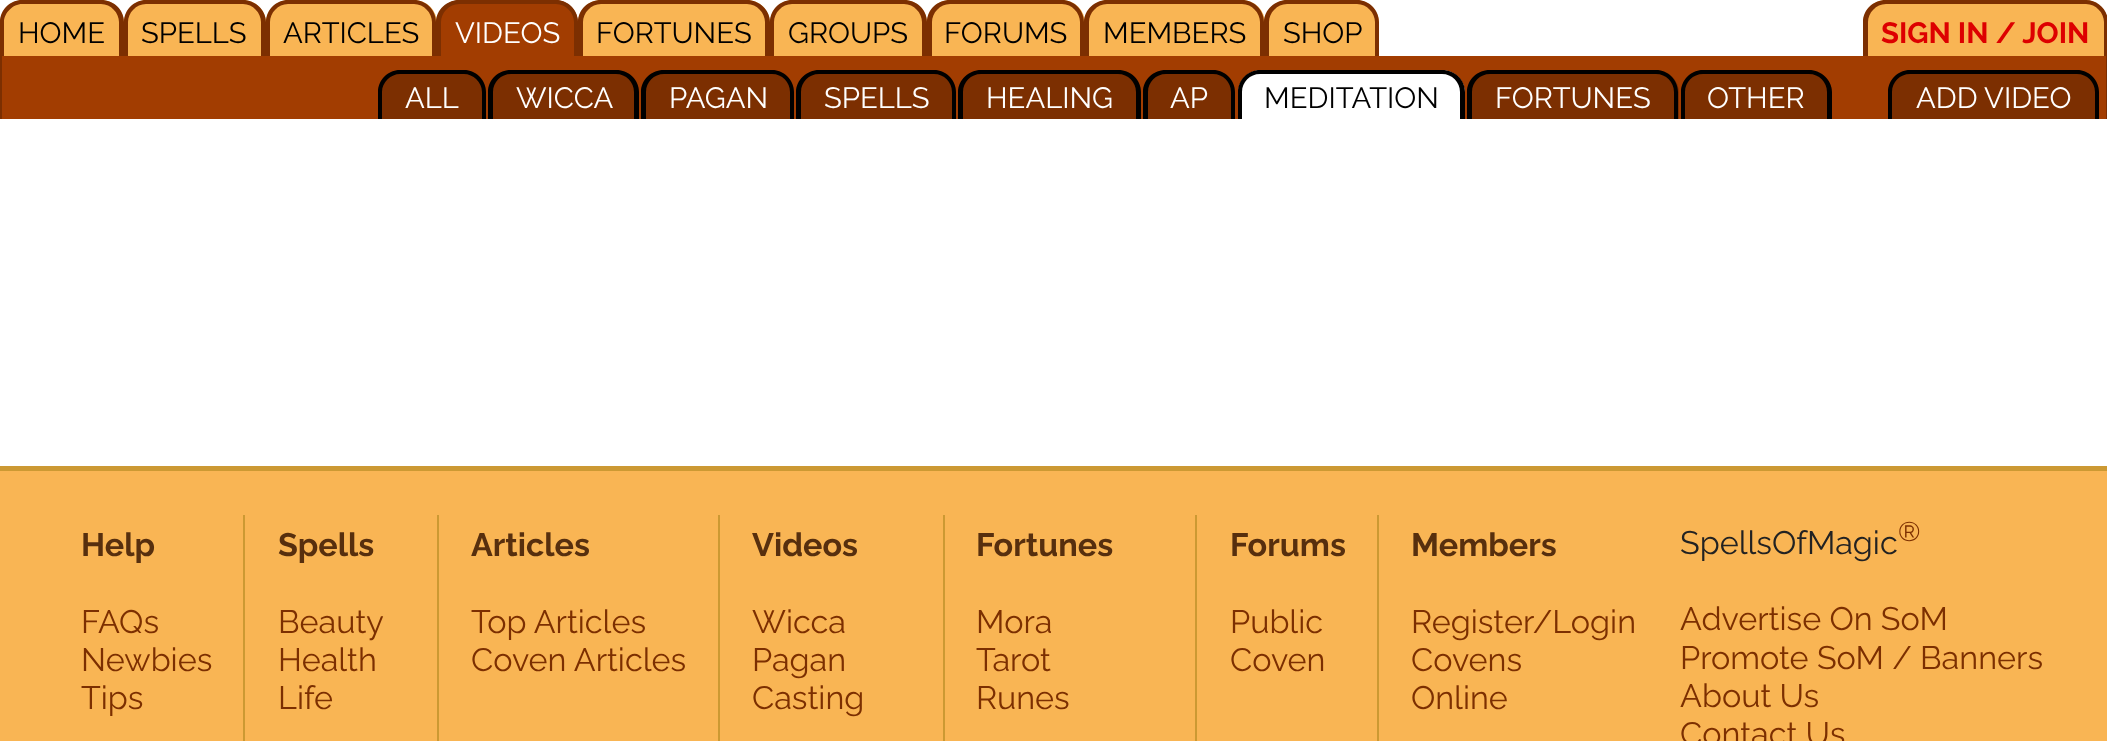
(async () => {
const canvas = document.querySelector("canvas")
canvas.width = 2107
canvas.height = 741
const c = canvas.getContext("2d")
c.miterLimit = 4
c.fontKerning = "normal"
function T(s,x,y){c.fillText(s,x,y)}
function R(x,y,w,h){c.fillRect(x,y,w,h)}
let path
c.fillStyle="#fff"
R(0,0,2107,741)
c.fillStyle="#f9b554"
c.beginPath()
c.roundRect(0,0,124,56,[23,23,0,0])
c.fill()
c.fillStyle="#7c2f01"
path = new Path2D("M22 0h79c13 0 23 10 23 22v34h-124v-34c0-12 10-22 22-22zm0 4h79c10 0 18 9 18 18v34h-115v-34c0-9 9-18 18-18z")
c.fill(path,"evenodd")
c.font="29.25px Raleway"
c.fillStyle="#000"
T("HOME",18,43)
c.fillStyle="#f9b554"
c.beginPath()
c.roundRect(124,0,142,56,[23,23,0,0])
c.fill()
c.fillStyle="#7c2f01"
path = new Path2D("M146 0h97c12 0 23 10 23 22v34h-142v-34c0-12 10-22 22-22zm0 4h97c10 0 18 9 18 18v34h-133v-34c0-9 8-18 18-18z")
c.fill(path,"evenodd")
c.fillStyle="#000"
T("SPELLS",141,43)
c.fillStyle="#f9b554"
c.beginPath()
c.roundRect(266,0,171,56,[23,23,0,0])
c.fill()
c.fillStyle="#7c2f01"
path = new Path2D("M288 0h126c12 0 22 10 22 22v34h-170v-34c0-12 10-22 22-22zm0 4h126c10 0 18 9 18 18v34h-162v-34c0-9 8-18 18-18z")
c.fill(path,"evenodd")
c.fillStyle="#000"
T("ARTICLES",283,43)
c.fillStyle="#a23d01"
c.beginPath()
c.roundRect(437,0,141,56,[23,23,0,0])
c.fill()
c.fillStyle="#7c2f01"
path = new Path2D("M459 0h97c12 0 22 10 22 22v34h-142v-34c0-12 11-22 23-22zm0 4h97c10 0 18 9 18 18v34h-133v-34c0-9 8-18 18-18z")
c.fill(path,"evenodd")
c.fillStyle="#fff"
T("VIDEOS",455,43)
c.fillStyle="#f9b554"
c.beginPath()
c.roundRect(578,0,192,56,[23,23,0,0])
c.fill()
c.fillStyle="#7c2f01"
path = new Path2D("M601 0h146c12 0 23 10 23 22v34h-192v-34c0-12 10-22 23-22zm0 4h146c10 0 18 9 18 18v34h-182v-34c0-9 8-18 18-18z")
c.fill(path,"evenodd")
c.fillStyle="#000"
T("FORTUNES",596,43)
c.fillStyle="#f9b554"
c.beginPath()
c.roundRect(770,0,157,56,[23,23,0,0])
c.fill()
c.fillStyle="#7c2f01"
path = new Path2D("M792 0h112c13 0 23 10 23 22v34h-157v-34c0-12 10-22 22-22zm0 4h112c10 0 18 9 18 18v34h-148v-34c0-9 8-18 18-18z")
c.fill(path,"evenodd")
c.fillStyle="#000"
T("GROUPS",788,43)
c.fillStyle="#f9b554"
c.beginPath()
c.roundRect(927,0,158,56,[23,23,0,0])
c.fill()
c.fillStyle="#7c2f01"
path = new Path2D("M950 0h112c12 0 22 10 22 22v34h-157v-34c0-12 10-22 23-22zm0 4h112c10 0 18 9 18 18v34h-148v-34c0-9 8-18 18-18z")
c.fill(path,"evenodd")
c.fillStyle="#000"
T("FORUMS",944,43)
c.fillStyle="#f9b554"
c.beginPath()
c.roundRect(1085,0,180,56,[23,23,0,0])
c.fill()
c.fillStyle="#7c2f01"
path = new Path2D("M1107 0h135c12 0 22 10 22 22v34h-180v-34c0-12 11-22 23-22zm0 4h135c10 0 18 9 18 18v34h-171v-34c0-9 8-18 18-18z")
c.fill(path,"evenodd")
c.fillStyle="#000"
T("MEMBERS",1103,43)
c.fillStyle="#f9b554"
c.beginPath()
c.roundRect(1265,0,114,56,[23,23,0,0])
c.fill()
c.fillStyle="#7c2f01"
path = new Path2D("M1287 0h70c12 0 22 10 22 22v34h-115v-34c0-12 11-22 23-22zm0 4h70c10 0 18 9 18 18v34h-106v-34c0-9 8-18 18-18z")
c.fill(path,"evenodd")
c.fillStyle="#000"
T("SHOP",1283,43)
c.fillStyle="#f9b554"
path = new Path2D("M1886 0h199c12.5 0 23 10.5 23 23v33h-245v-33c0-12.5 10.5-23 23-23z")
c.fill(path)
c.fillStyle="#7c2f01"
path = new Path2D("M1886 0h200c12 0 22 10 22 22v34h-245v-34c0-12 10-22 23-22zm0 4h200c10 0 18 9 18 18v34h-236v-34c0-9 8-18 18-18z")
c.fill(path,"evenodd")
c.font="bold 29.25px Raleway"
c.fillStyle="#d00"
T("SIGN IN / JOIN",1881,43)
c.fillStyle="#a23d01"
R(2,56,2104,63)
c.fillStyle="#7c2f01"
R(2106,56,1,63)
R(0,56,2,63)
c.beginPath()
c.roundRect(378,70,108,49,[23,23,0,0])
c.fill()
c.fillStyle="#000"
path = new Path2D("M400 70h64c12 0 22 10 22 22v27h-108v-27c0-12 10-22 22-22zm0 4h64c9 0 18 8 18 18v27h-100v-27c0-10 9-18 18-18z")
c.fill(path,"evenodd")
c.font="29.25px Raleway"
c.fillStyle="#fff"
T("ALL",405,108)
c.fillStyle="#7c2f01"
c.beginPath()
c.roundRect(488,70,151,49,[23,23,0,0])
c.fill()
c.fillStyle="#000"
path = new Path2D("M511 70h105c13 0 23 10 23 22v27h-151v-27c0-12 10-22 23-22zm0 4h105c10 0 18 8 18 18v27h-141v-27c0-10 8-18 18-18z")
c.fill(path,"evenodd")
c.fillStyle="#fff"
T("WICCA",516,108)
c.fillStyle="#7c2f01"
c.beginPath()
c.roundRect(641,70,153,49,[23,23,0,0])
c.fill()
c.fillStyle="#000"
path = new Path2D("M664 70h108c12 0 22 10 22 22v27h-153v-27c0-12 10-22 23-22zm0 4h108c10 0 18 8 18 18v27h-144v-27c0-10 8-18 18-18z")
c.fill(path,"evenodd")
c.fillStyle="#fff"
T("PAGAN",669,108)
c.fillStyle="#7c2f01"
c.beginPath()
c.roundRect(797,70,159,49,[23,23,0,0])
c.fill()
c.fillStyle="#000"
path = new Path2D("M819 70h115c12 0 22 10 22 22v27h-160v-27c0-12 11-22 23-22zm0 4h115c10 0 18 8 18 18v27h-151v-27c0-10 8-18 18-18z")
c.fill(path,"evenodd")
c.fillStyle="#fff"
T("SPELLS",824,108)
c.fillStyle="#7c2f01"
c.beginPath()
c.roundRect(959,70,182,49,[23,23,0,0])
c.fill()
c.fillStyle="#000"
path = new Path2D("M981 70h137c13 0 23 10 23 22v27h-183v-27c0-12 11-22 23-22zm0 4h137c10 0 18 8 18 18v27h-173v-27c0-10 8-18 18-18z")
c.fill(path,"evenodd")
c.fillStyle="#fff"
T("HEALING",986,108)
c.fillStyle="#7c2f01"
c.beginPath()
c.roundRect(1143,70,92,49,[23,23,0,0])
c.fill()
c.fillStyle="#000"
path = new Path2D("M1166 70h47c12 0 22 10 22 22v27h-92v-27c0-12 10-22 23-22zm0 4h47c10 0 18 8 18 18v27h-83v-27c0-10 8-18 18-18z")
c.fill(path,"evenodd")
c.fillStyle="#fff"
T("AP",1170,108)
c.beginPath()
c.roundRect(1238,70,227,49,[23,23,0,0])
c.fill()
c.fillStyle="#000"
path = new Path2D("M1260 70h182c13 0 23 10 23 22v27h-227v-27c0-12 10-22 22-22zm0 4h182c10 0 18 8 18 18v27h-218v-27c0-10 8-18 18-18z")
c.fill(path,"evenodd")
T("MEDITATION",1264,108)
c.fillStyle="#7c2f01"
c.beginPath()
c.roundRect(1467,70,212,49,[23,23,0,0])
c.fill()
c.fillStyle="#000"
path = new Path2D("M1490 70h166c12 0 22 10 22 22v27h-211v-27c0-12 10-22 23-22zm0 4h166c10 0 18 8 18 18v27h-202v-27c0-10 8-18 18-18z")
c.fill(path,"evenodd")
c.fillStyle="#fff"
T("FORTUNES",1495,108)
c.fillStyle="#7c2f01"
c.beginPath()
c.roundRect(1681,70,151,49,[23,23,0,0])
c.fill()
c.fillStyle="#000"
path = new Path2D("M1703 70h106c12 0 23 10 23 22v27h-151v-27c0-12 10-22 22-22zm0 4h106c10 0 18 8 18 18v27h-142v-27c0-10 8-18 18-18z")
c.fill(path,"evenodd")
c.fillStyle="#fff"
T("OTHER",1707,108)
c.fillStyle="#7c2f01"
c.beginPath()
c.roundRect(1888,70,211,49,[23,23,0,0])
c.fill()
c.fillStyle="#000"
path = new Path2D("M1910 70h167c12 0 22 10 22 22v27h-211v-27c0-12 10-22 22-22zm0 4h167c10 0 18 8 18 18v27h-203v-27c0-10 8-18 18-18z")
c.fill(path,"evenodd")
c.fillStyle="#fff"
T("ADD VIDEO",1916,108)
c.fillStyle="#f9b554"
R(0,471,2107,270)
c.fillStyle="#c93"
R(0,466,2107,5)
c.font="bold 32.4px Raleway"
c.fillStyle="#572f0e"
T("Help",81,556)
c.font="32.4px Raleway"
c.fillStyle="#7c2f01"
T("FAQs",81,633)
T("Newbies",81,671)
T("Tips",81,709)
c.fillStyle="#c93"
R(243,515,2,226)
c.font="bold 32.4px Raleway"
c.fillStyle="#572f0e"
T("Spells",278,556)
c.font="32.4px Raleway"
c.fillStyle="#7c2f01"
T("Beauty",278,633)
T("Health",278,671)
T("Life",278,709)
c.fillStyle="#c93"
R(437,515,2,226)
c.font="bold 32.4px Raleway"
c.fillStyle="#572f0e"
T("Articles",471,556)
c.font="32.4px Raleway"
c.fillStyle="#7c2f01"
T("Top Articles",471,633)
T("Coven Articles",471,671)
c.fillStyle="#c93"
R(718,515,2,226)
c.font="bold 32.4px Raleway"
c.fillStyle="#572f0e"
T("Videos",752,556)
c.font="32.4px Raleway"
c.fillStyle="#7c2f01"
T("Wicca",752,633)
T("Pagan",752,671)
T("Casting",752,709)
c.fillStyle="#c93"
R(943,515,2,226)
c.font="bold 32.4px Raleway"
c.fillStyle="#572f0e"
T("Fortunes",976,556)
c.font="32.4px Raleway"
c.fillStyle="#7c2f01"
T("Mora",976,633)
T("Tarot",976,671)
T("Runes",976,709)
c.fillStyle="#c93"
R(1195,515,2,226)
c.font="bold 32.4px Raleway"
c.fillStyle="#572f0e"
T("Forums",1230,556)
c.font="32.4px Raleway"
c.fillStyle="#7c2f01"
T("Public",1230,633)
T("Coven",1230,671)
c.fillStyle="#c93"
R(1377,515,2,226)
c.font="bold 32.4px Raleway"
c.fillStyle="#572f0e"
T("Members",1411,556)
c.font="32.4px Raleway"
c.fillStyle="#7c2f01"
T("Register/Login",1411,633)
T("Covens",1411,671)
T("Online",1411,709)
c.fillStyle="#222"
T("SpellsOfMagic",1680,554)
c.font="27px Raleway"
c.fillStyle="#7c2f01"
T("®",1898,541)
c.font="32.4px Raleway"
T("Advertise On SoM",1680,630)
T("Promote SoM / Banners",1680,669)
T("About Us",1680,707)
T("Contact Us",1680,745)
})()
